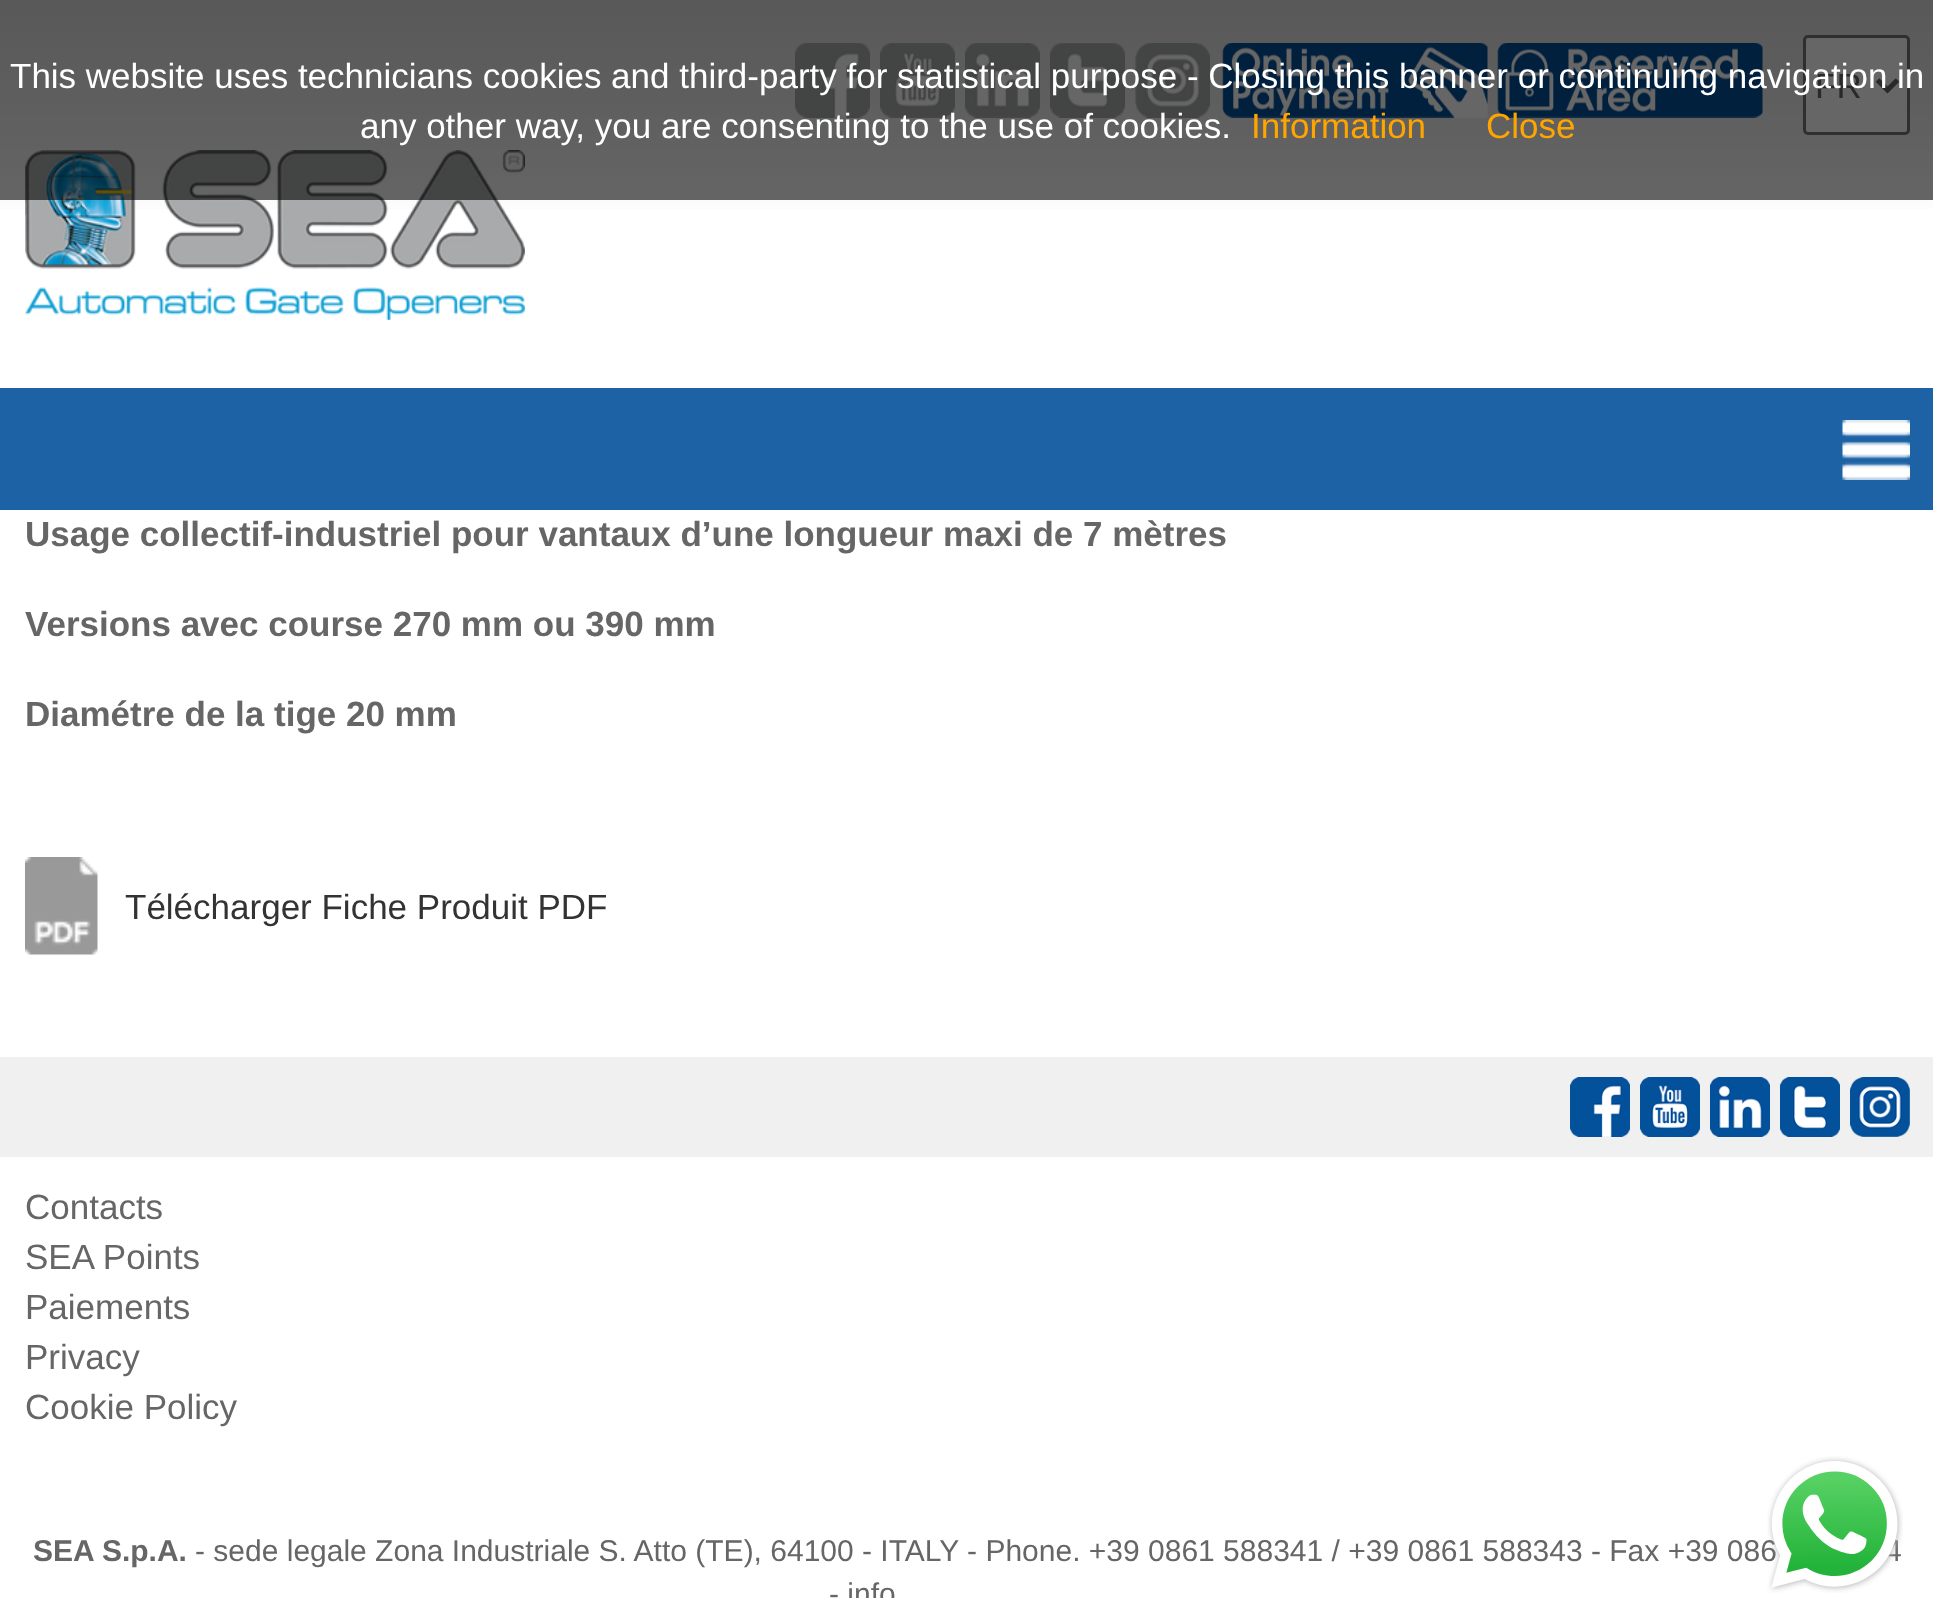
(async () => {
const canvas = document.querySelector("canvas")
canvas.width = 1933
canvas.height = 1598
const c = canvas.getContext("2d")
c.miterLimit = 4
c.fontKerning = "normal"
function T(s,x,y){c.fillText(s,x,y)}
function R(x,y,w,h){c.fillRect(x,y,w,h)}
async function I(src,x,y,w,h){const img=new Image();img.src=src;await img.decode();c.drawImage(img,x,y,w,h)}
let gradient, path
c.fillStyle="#fff"
R(0,0,1933,1598)
c.fillStyle="#1c62a5"
R(0,425,1933,85)
gradient = c.createLinearGradient(968,0,968,425)
gradient.addColorStop(0,"#e0dddd")
gradient.addColorStop(.53,"#fff")
gradient.addColorStop(1,"#fff")
c.fillStyle = gradient
R(0,0,1933,209)
await I("1.png",795,43,75,75)
await I("2.png",880,43,75,75)
await I("3.png",965,43,75,75)
await I("4.png",1050,43,75,75)
await I("5.png",1135,43,75,75)
await I("6.png",1222,43,266,75)
await I("7.png",1497,43,266,75)
c.fillStyle="#fff"
c.beginPath()
c.roundRect(1804.5,36.5,104,97,3.5)
c.fill()
c.strokeStyle="#767676"
c.lineWidth=3
c.stroke()
path = new Path2D("M1877.5 80l10 10l10-10")
c.strokeStyle="#666"
c.lineWidth=5
c.stroke(path)
c.font="35px Liberation Sans"
c.fillStyle="#666"
T("FR",1815,98)
await I("8.png",25,150,500,170)
c.fillStyle="#00000099"
R(0,0,1933,200)
c.fillStyle="#fff"
T("This website uses technicians cookies and third-party for statistical purpose - Closing this banner or continuing navigation in",10,88)
T("any other way, you are consenting to the use of cookies.",360,138)
c.fillStyle="#ffa500"
T("Information",1251,138)
T("Close",1486,138)
gradient = c.createLinearGradient(968,0,968,425)
gradient.addColorStop(0,"#195fa2")
gradient.addColorStop(.53,"#1c62a5")
gradient.addColorStop(1,"#1c62a5")
c.fillStyle = gradient
R(0,388,1933,37)
await I("9.png",1842,420,68,60)
c.font="bold 35px Liberation Sans"
c.fillStyle="#666"
T("Usage collectif-industriel pour vantaux d’une longueur maxi de 7 mètres",25,546)
T("Versions avec course 270 mm ou 390 mm",25,636)
T("Diamétre de la tige 20 mm",25,726)
await I("10.png",25,857,73,98)
c.font="35px Liberation Sans"
c.fillStyle="#333"
T("Télécharger Fiche Produit PDF",125,919)
c.fillStyle="#f0f0f0"
R(0,1057,1933,100)
await I("11.png",1570,1077,60,60)
await I("12.png",1640,1077,60,60)
await I("13.png",1710,1077,60,60)
await I("14.png",1780,1077,60,60)
await I("15.png",1850,1077,60,60)
c.fillStyle="#666"
T("Contacts",25,1219)
T("SEA Points",25,1269)
T("Paiements",25,1319)
T("Privacy",25,1369)
T("Cookie Policy",25,1419)
c.font="bold 30px Liberation Sans"
T("SEA S.p.A.",33,1561)
c.font="30px Liberation Sans"
T("- sede legale Zona Industriale S. Atto (TE), 64100 - ITALY - Phone. +39 0861 588341 / +39 0861 588343 - Fax +39 086",195,1561)
T("4",1885,1561)
T("- info",829,1604)
await I("16.png",1767,1456,136,137)
})()
